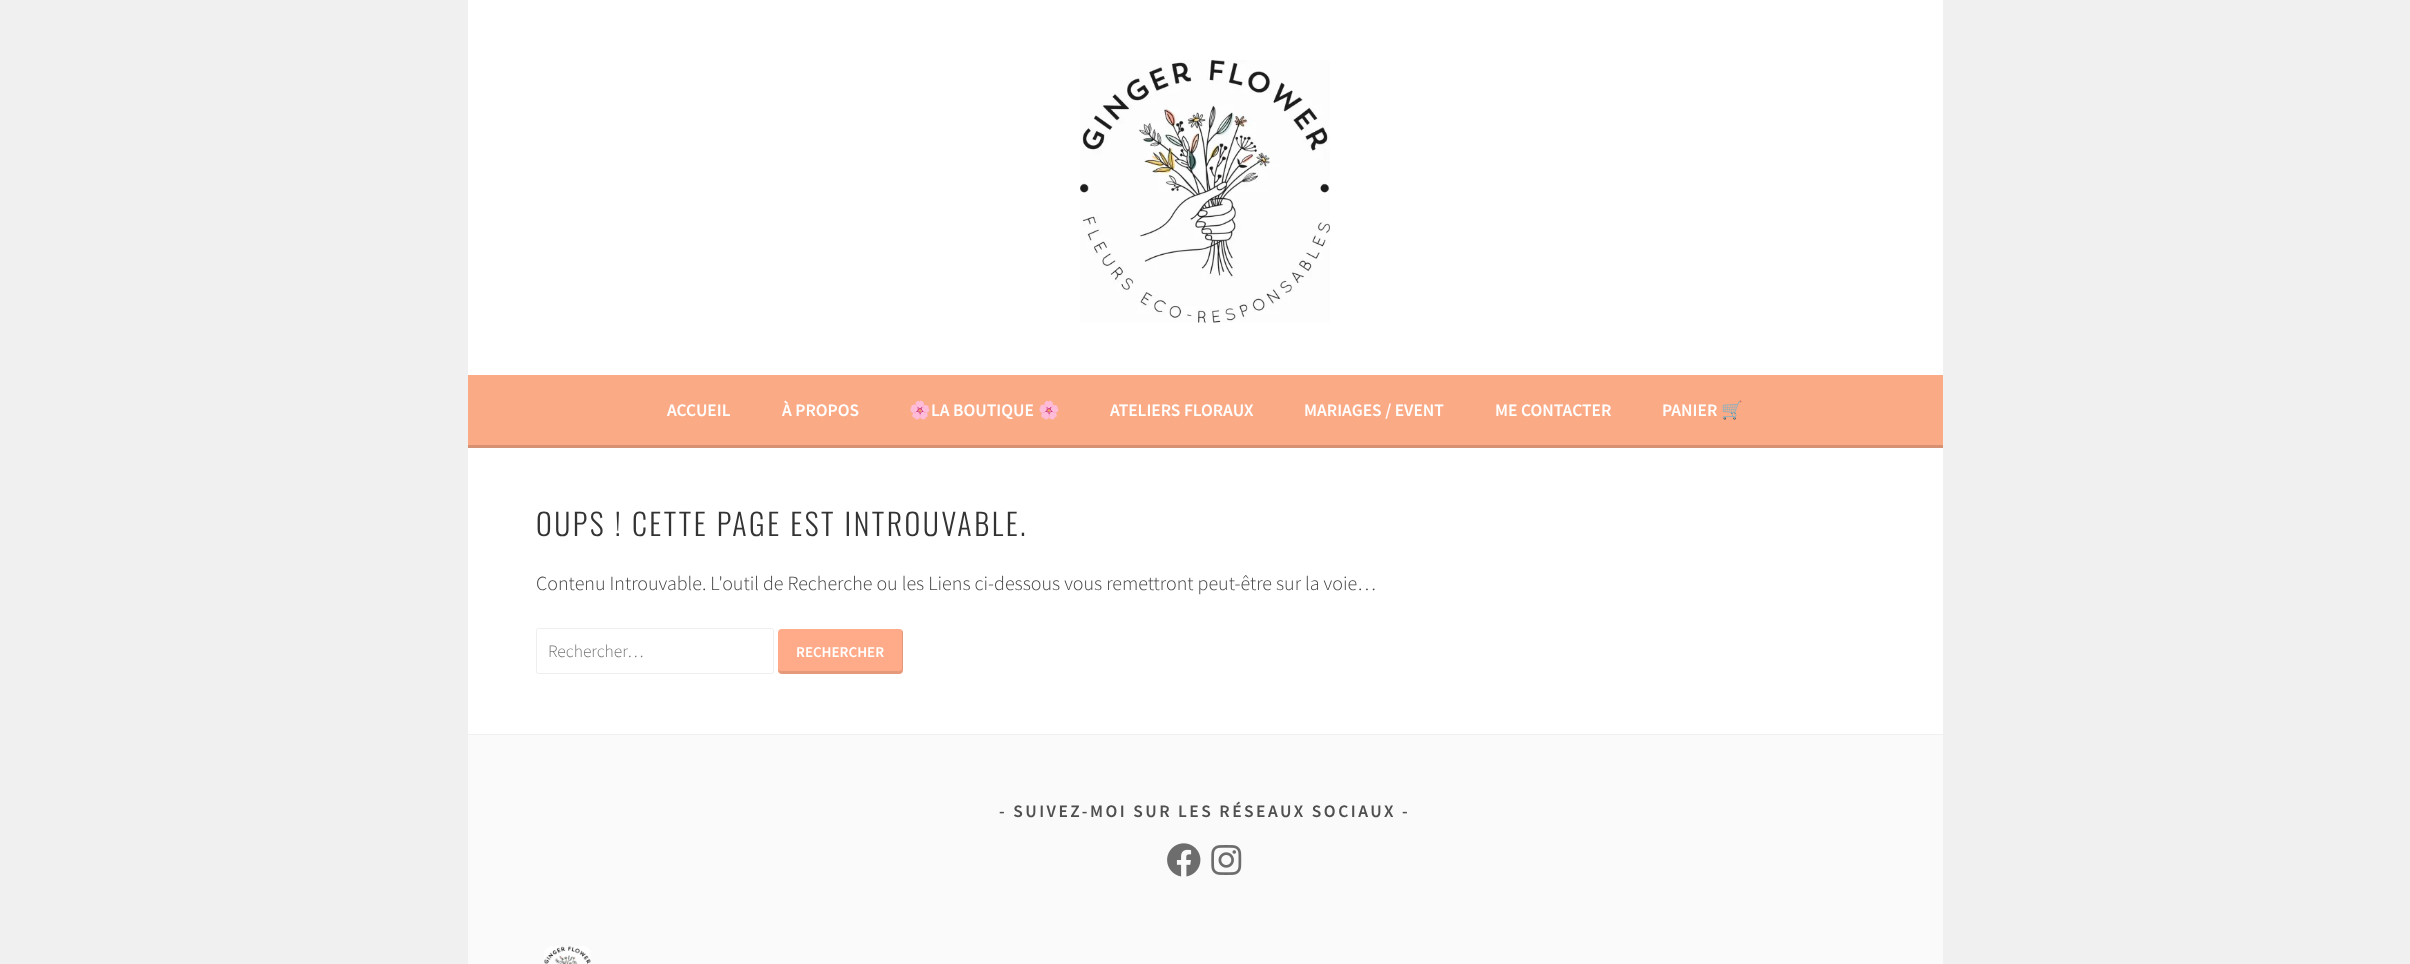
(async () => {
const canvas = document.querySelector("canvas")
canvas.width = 2410
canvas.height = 964
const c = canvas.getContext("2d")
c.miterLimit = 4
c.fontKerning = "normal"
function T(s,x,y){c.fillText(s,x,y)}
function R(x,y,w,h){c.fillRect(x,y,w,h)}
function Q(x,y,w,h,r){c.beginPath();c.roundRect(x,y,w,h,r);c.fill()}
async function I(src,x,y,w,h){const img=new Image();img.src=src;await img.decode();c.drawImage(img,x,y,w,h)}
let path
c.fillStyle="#f0f0f0"
R(0,0,2410,964)
c.fillStyle="#fff"
R(468,0,1475,375)
await I("1.png",1080,60,250,263)
c.fillStyle="#fbaa86"
R(468,375,1475,70)
c.fillStyle="#d59172"
R(468,445,1475,3)
c.font="600 17.5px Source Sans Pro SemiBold"
c.fillStyle="#fff"
T("ACCUEIL",667,416)
T("À PROPOS",782,416)
c.font="bold 17.5px Noto Color Emoji"
T("🌸",909,416)
c.font="600 17.5px Source Sans Pro SemiBold"
T("LA BOUTIQUE",931,416)
c.font="bold 17.5px Noto Color Emoji"
T("🌸",1038,416)
c.font="600 17.5px Source Sans Pro SemiBold"
T("ATELIERS FLORAUX",1110,416)
T("MARIAGES / EVENT",1304,416)
T("ME CONTACTER",1495,416)
T("PANIER",1662,416)
c.font="bold 17.5px Noto Color Emoji"
T("🛒",1721,416)
R(468,448,1475,286)
c.letterSpacing="2.5px"
c.font="300 30px Oswald"
c.fillStyle="#333"
T("OUPS ! CETTE PAGE EST INTROUVABLE.",536,536)
c.letterSpacing="0px"
c.font="300 20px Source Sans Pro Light"
c.fillStyle="#404040"
T("Contenu Introuvable. L'outil de Recherche ou les Liens ci-dessous vous remettront peut-être sur la voie…",536,590)
c.beginPath()
c.roundRect(536.5,628.5,237,45,2)
c.strokeStyle="#eee"
c.stroke()
c.font="300 17.5px Source Sans Pro Light"
c.fillStyle="#757575"
T("Rechercher…",548,657)
c.fillStyle="#ffab8a"
Q(778,629,125,45,4)
c.fillStyle="#0000001a"
path = new Path2D("M778 668v2c0 2 2 4 4 4h117c2 0 4-2 4-4v-37c0-1 0-2-1-3v38c0 2-1 3-3 3h-118c-2 0-3-1-3-3z")
c.fill(path)
c.font="600 15px Source Sans Pro SemiBold"
c.fillStyle="#fff"
T("RECHERCHER",796,657)
c.fillStyle="#fafafa"
R(468,735,1475,229)
c.letterSpacing="2.5px"
c.font="600 17.5px Source Sans Pro SemiBold"
c.fillStyle="#4f4f4f"
T("- SUIVEZ-MOI SUR LES RÉSEAUX SOCIAUX -",999,817)
await I("2.png",1167,843,34,34)
await I("3.png",1211,845,31,30)
await I("4.png",544,946,47,18)
})()
